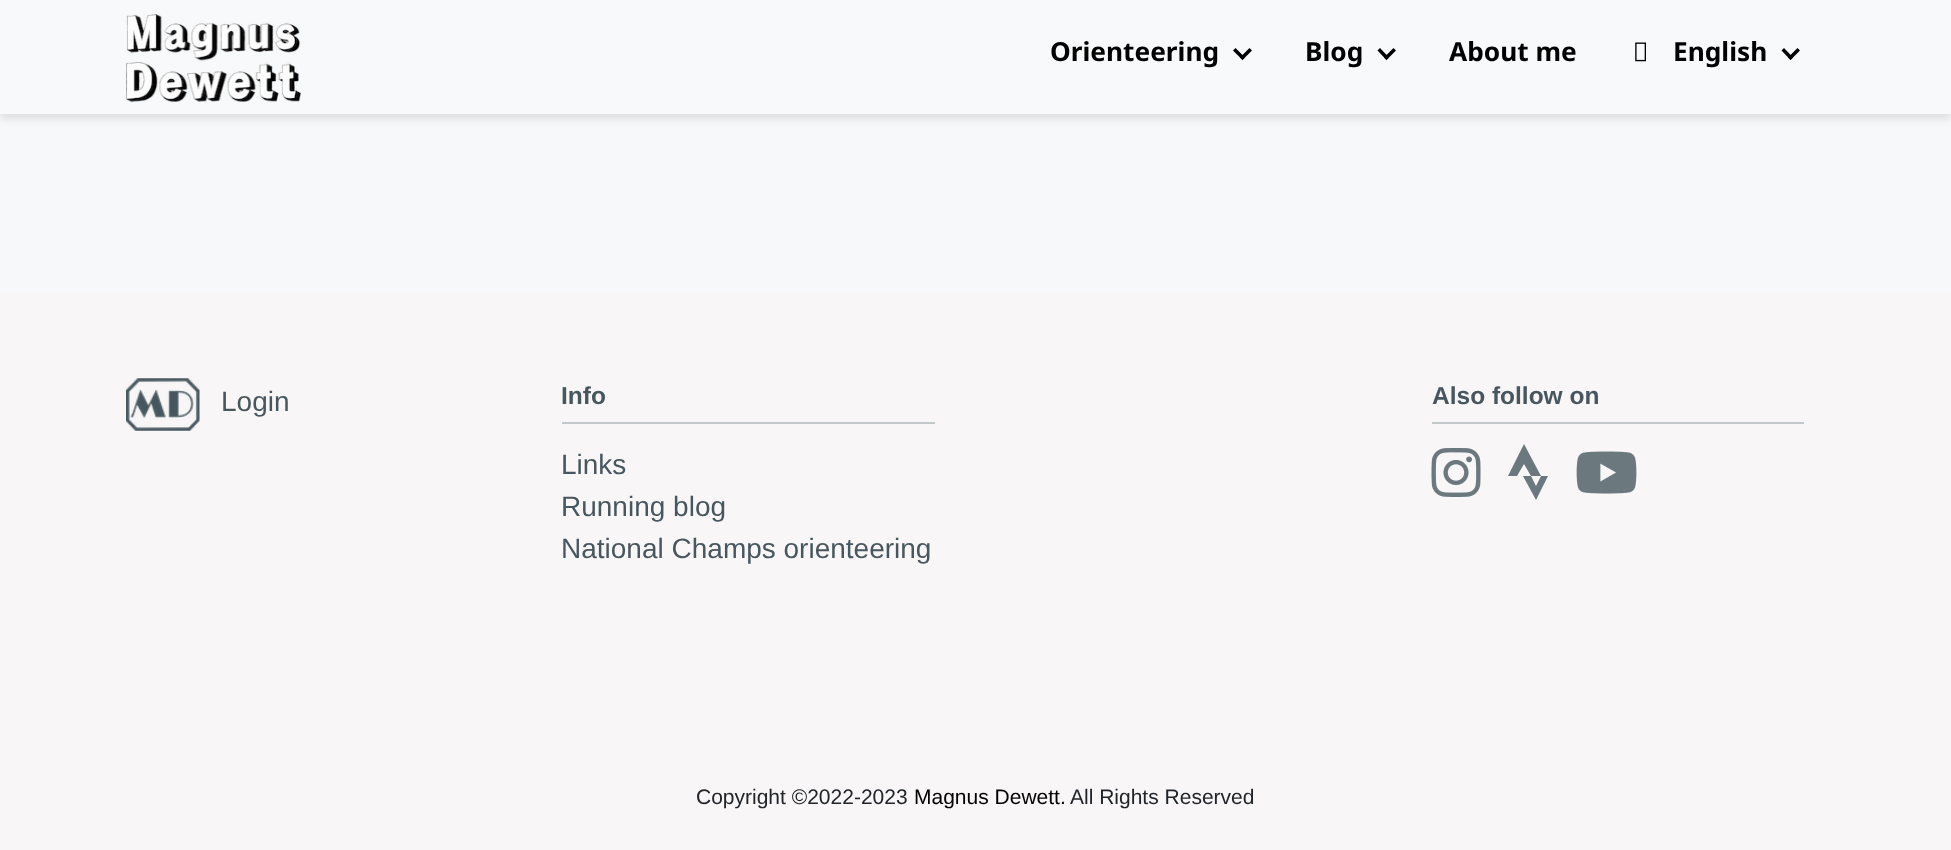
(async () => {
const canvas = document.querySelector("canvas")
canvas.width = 1951
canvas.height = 850
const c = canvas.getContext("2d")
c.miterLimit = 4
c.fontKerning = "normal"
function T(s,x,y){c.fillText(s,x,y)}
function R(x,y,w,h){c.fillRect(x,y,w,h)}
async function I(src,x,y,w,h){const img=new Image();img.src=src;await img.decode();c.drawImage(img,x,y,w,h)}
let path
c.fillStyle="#f7f8fa"
R(0,0,1951,850)
c.fillStyle="#0000001a"
c.filter="blur(4.5px)"
c.beginPath()
c.rect(0,5,1951,114)
c.fill()
c.filter="none"
c.fillStyle="#f8f9fa"
R(0,0,1951,114)
await I("1.png",126,14,175,88)
c.font="bold 26.25px Noto Sans"
c.fillStyle="#000"
T("Orienteering",1050,61)
path = new Path2D("M1240 57.5l9.5-9.5l2.5 2.5l-9.5 9.5z")
c.fill(path)
path = new Path2D("M1233 50.5l2.5-2.5l9.5 9.5l-2.5 2.5z")
c.fill(path)
T("Blog",1305,61)
path = new Path2D("M1384 57.5l9.5-9.5l2.5 2.5l-9.5 9.5z")
c.fill(path)
path = new Path2D("M1377.5 50.5l2.5-2.5l9 9.5l-2.5 2.5z")
c.fill(path)
T("About me",1449,61)
await I("2.png",1635,42,11,20)
T("English",1673,61)
path = new Path2D("M1788 57.5l9.5-9.5l2.5 2.5l-9.5 9.5z")
c.fill(path)
path = new Path2D("M1781.5 50.5l2.5-2.5l9 9.5l-2.5 2.5z")
c.fill(path)
c.fillStyle="#f8f6f6"
R(0,291,1951,559)
await I("3.png",126,378,74,53)
c.font="28px Liberation Sans"
c.fillStyle="#48575f"
T("Login",221,411)
c.font="bold 24.5px Liberation Sans"
T("Info",561,404)
c.fillStyle="#c2c7c9"
R(562,422,373,2)
c.font="28px Liberation Sans"
c.fillStyle="#48575f"
T("Links",561,474)
T("Running blog",561,516)
T("National Champs orienteering",561,558)
c.font="bold 24.5px Liberation Sans"
T("Also follow on",1432,404)
c.fillStyle="#c2c7c9"
R(1432,422,372,2)
await I("4.png",1431,448,50,49)
c.fillStyle="#6b797f"
path = new Path2D("M1524 444l-16 32h9l7-12l7 12h10zm17 32l-5 10l-5-10h-8l13 24l12-24z")
c.fill(path)
await I("5.png",1576,451,61,43)
c.font="21px Liberation Sans"
c.fillStyle="#212529"
T("Copyright ©2022-2023",696,804)
c.fillStyle="#000"
T("Magnus Dewett.",914,804)
c.fillStyle="#212529"
T("All Rights Reserved",1070,804)
})()
